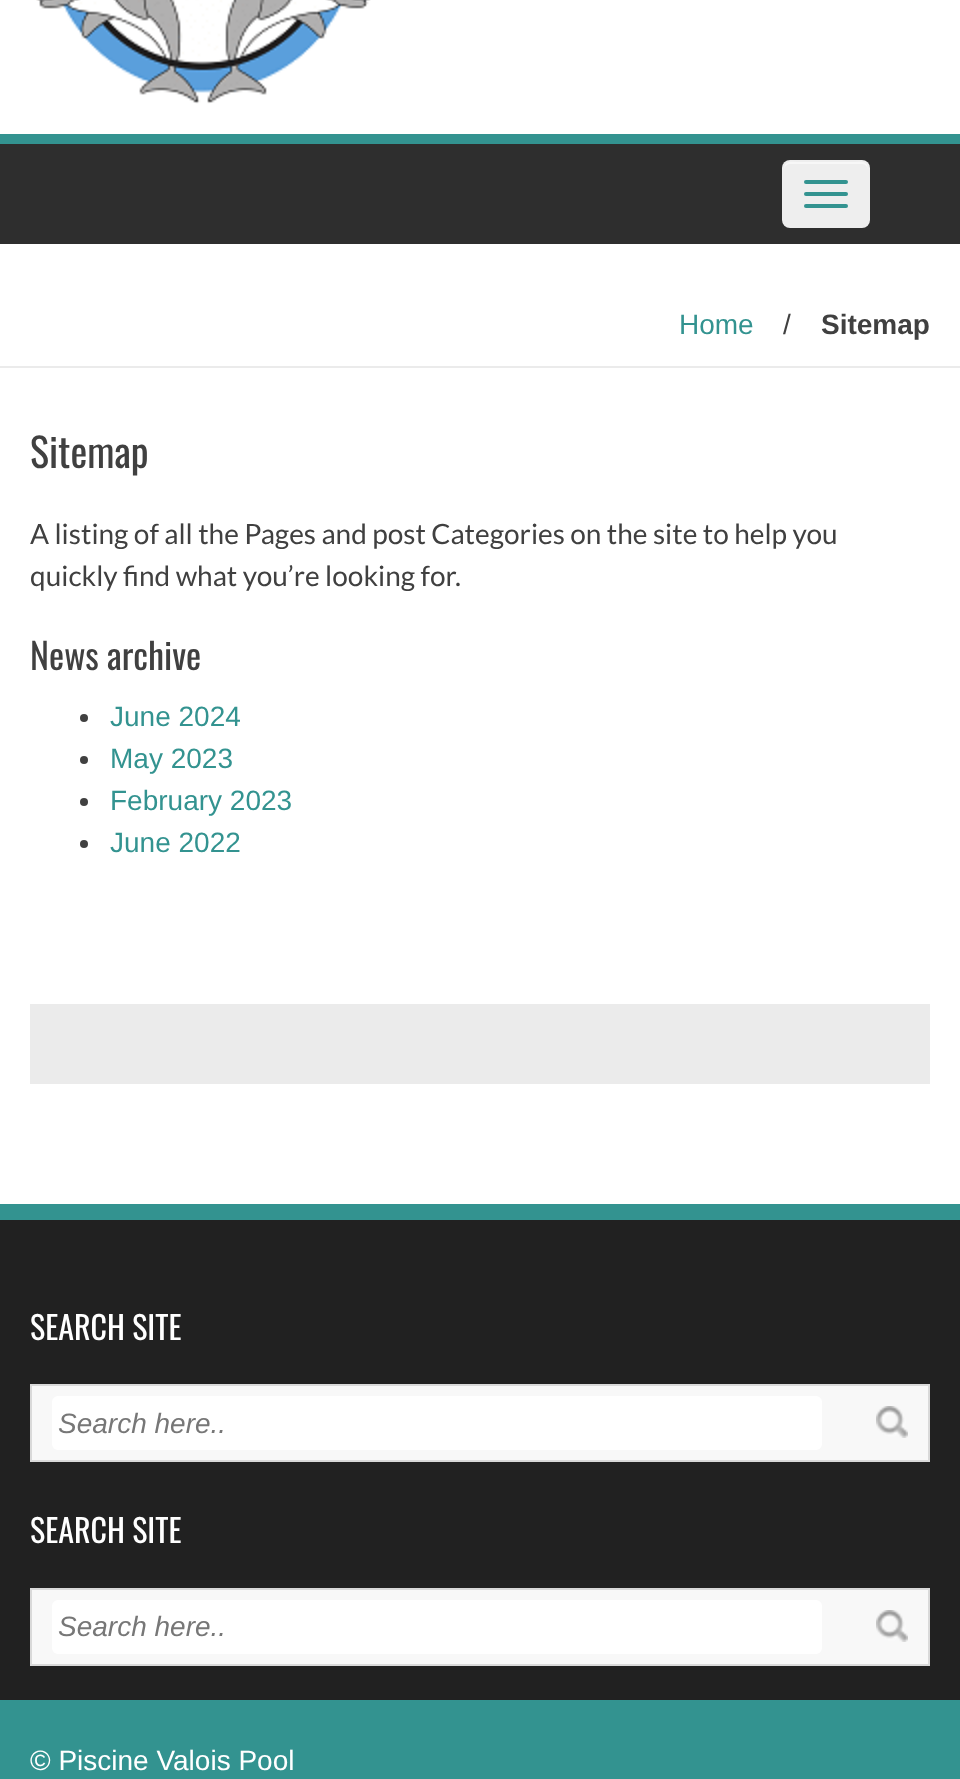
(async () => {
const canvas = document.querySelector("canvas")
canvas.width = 960
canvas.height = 1779
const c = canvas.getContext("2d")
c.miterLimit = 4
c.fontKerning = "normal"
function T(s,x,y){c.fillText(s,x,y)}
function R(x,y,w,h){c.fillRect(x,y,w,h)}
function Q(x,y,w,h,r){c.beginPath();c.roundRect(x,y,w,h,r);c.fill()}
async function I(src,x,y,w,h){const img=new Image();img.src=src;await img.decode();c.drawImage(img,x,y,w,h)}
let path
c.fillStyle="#fff"
R(0,0,960,1779)
await I("1.png",36,0,335,104)
c.fillStyle="#2e2e2e"
R(0,144,960,100)
c.fillStyle="#339390"
R(0,134,960,10)
c.fillStyle="#eee"
Q(782,160,88,68,8)
c.fillStyle="#f7f7f7"
path = new Path2D("M790 164h72c3 0 6 3 6 6c0-11-9-8-18-8h-48c-9 0-18-3-18 8c0-3 3-6 6-6z")
c.fill(path)
c.fillStyle="#339390"
Q(804,180,44,4,2)
Q(804,192,44,4,2)
Q(804,204,44,4,2)
c.fillStyle="#ebebeb"
R(0,366,960,2)
c.font="28px Liberation Sans"
c.fillStyle="#339390"
T("Home",679,334)
c.fillStyle="#404040"
T("/",783,334)
c.font="bold 28px Liberation Sans"
T("Sitemap",821,334)
c.font="40px Oswald"
T("Sitemap",30,468)
c.font="28px Lato"
T("A listing of all the Pages and post Categories on the site to help you",30,544)
T("quickly find what you’re looking for.",30,586)
c.font="36px Oswald"
T("News archive",30,670)
c.beginPath()
c.arc(84,718,4,0,7)
c.fill()
c.font="28px Liberation Sans"
c.fillStyle="#339390"
T("June 2024",110,726)
c.fillStyle="#404040"
c.beginPath()
c.arc(84,760,4,0,7)
c.fill()
c.fillStyle="#339390"
T("May 2023",110,768)
c.fillStyle="#404040"
c.beginPath()
c.arc(84,802,4,0,7)
c.fill()
c.fillStyle="#339390"
T("February 2023",110,810)
c.fillStyle="#404040"
c.beginPath()
c.arc(84,844,4,0,7)
c.fill()
c.fillStyle="#339390"
T("June 2022",110,852)
c.fillStyle="#ebebeb"
R(30,1004,900,80)
c.fillStyle="#212121"
R(0,1220,960,480)
c.fillStyle="#339390"
R(0,1204,960,16)
c.font="32px Oswald"
c.fillStyle="#fff"
T("SEARCH SITE",30,1340)
c.fillStyle="#f8f8f8"
c.beginPath()
c.rect(31,1385,898,76)
c.fill()
c.strokeStyle="#d9d9d9"
c.lineWidth=2
c.stroke()
c.fillStyle="#fff"
Q(52,1396,770,54,6)
c.font="italic 28px Liberation Sans"
c.fillStyle="#777"
T("Search here..",58,1433)
await I("2.png",876,1406,32,32)
c.font="32px Oswald"
c.fillStyle="#fff"
T("SEARCH SITE",30,1543)
c.fillStyle="#f8f8f8"
c.beginPath()
c.rect(31,1589,898,76)
c.fill()
c.stroke()
c.fillStyle="#fff"
Q(52,1600,770,54,6)
c.font="italic 28px Liberation Sans"
c.fillStyle="#777"
T("Search here..",58,1636)
await I("2.png",876,1610,32,32)
c.fillStyle="#339390"
R(0,1700,960,79)
c.font="28px Liberation Sans"
c.fillStyle="#fff"
T("© Piscine Valois Pool",30,1770)
})()
